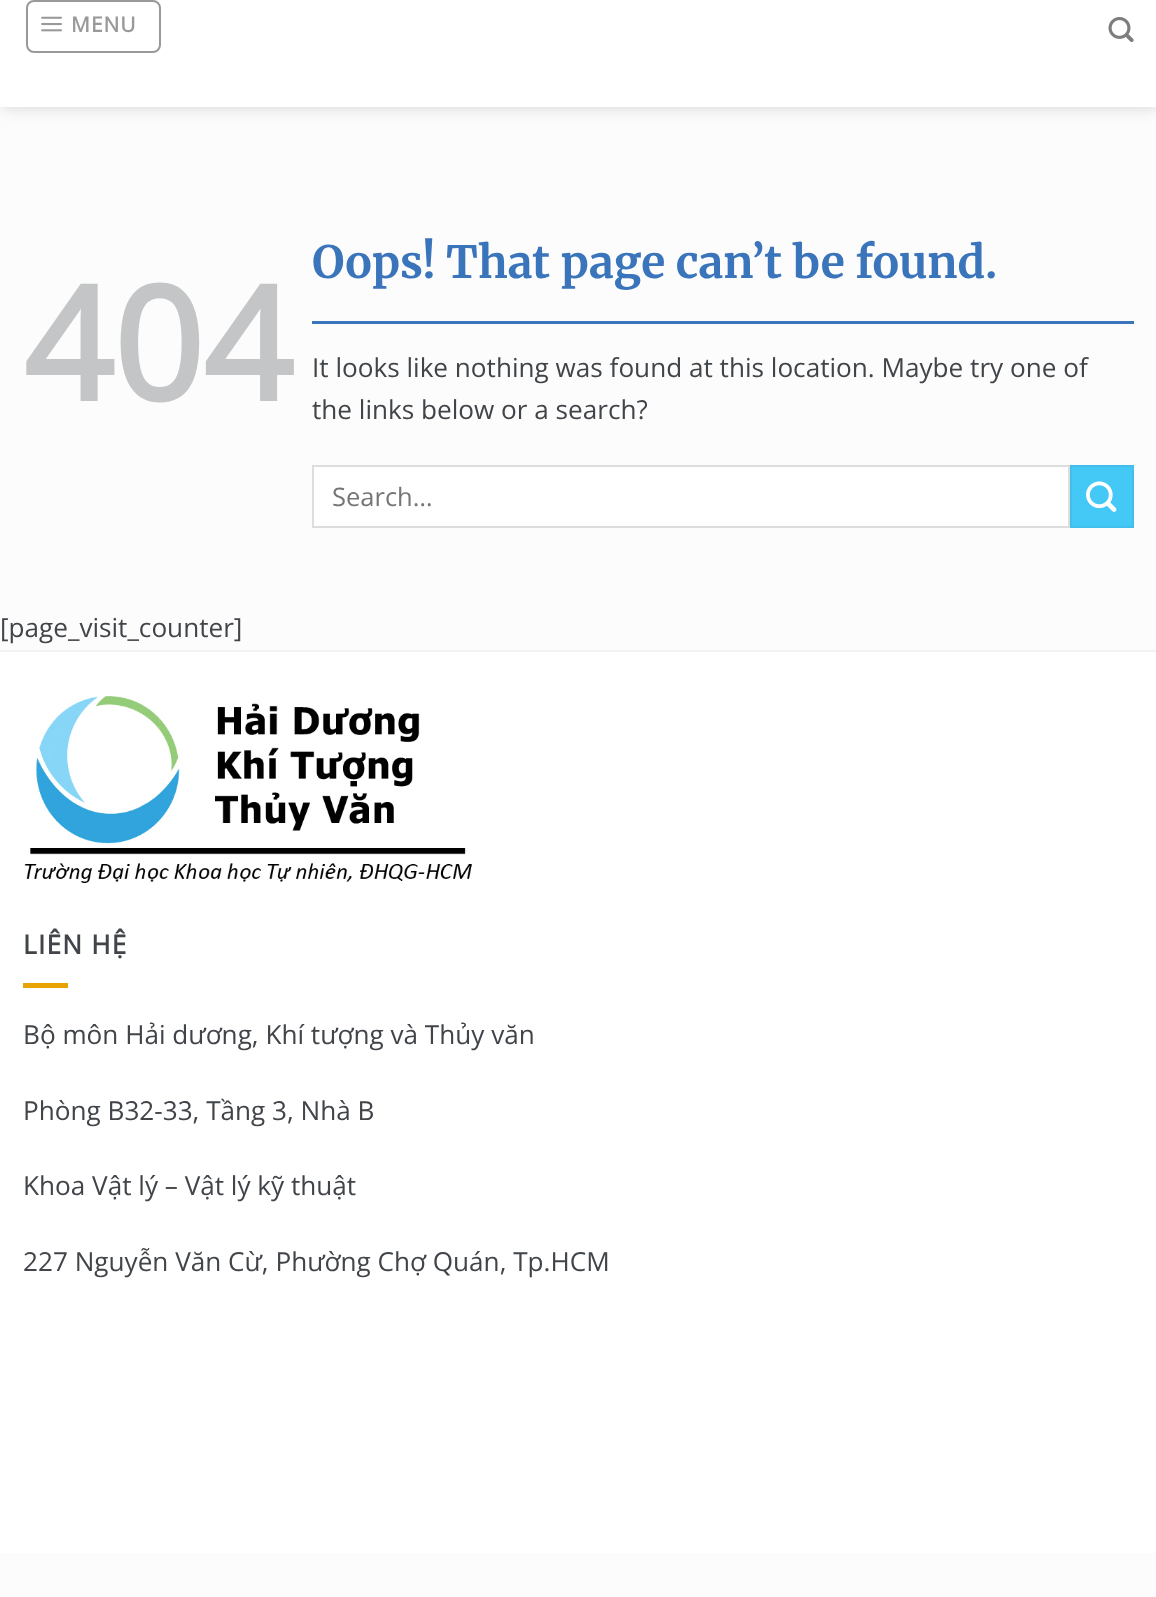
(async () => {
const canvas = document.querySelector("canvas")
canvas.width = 1156
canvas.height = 1597
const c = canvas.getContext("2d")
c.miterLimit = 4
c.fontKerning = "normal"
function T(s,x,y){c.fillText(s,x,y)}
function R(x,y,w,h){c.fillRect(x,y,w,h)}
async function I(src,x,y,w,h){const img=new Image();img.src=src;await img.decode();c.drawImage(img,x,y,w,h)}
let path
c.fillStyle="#fcfcfc"
R(0,0,1156,1597)
c.save()
path = new Path2D("M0 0h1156v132h-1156zm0 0h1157v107h-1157z")
c.clip(path,"evenodd")
c.fillStyle="#00000026"
c.filter="blur(7.5px)"
c.beginPath()
c.rect(2,2,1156,106)
c.fill()
c.filter="none"
c.restore()
c.fillStyle="#ffffffe6"
R(0,0,1156,107)
c.beginPath()
c.roundRect(27,1,133,51,7)
c.strokeStyle="#999"
c.lineWidth=2
c.stroke()
await I("1.png",41,16,21,16)
c.letterSpacing="1px"
c.font="bold 21px Open Sans"
c.fillStyle="#999"
T("MENU",71,32)
await I("2.png",1108,17,26,25)
c.letterSpacing="0px"
c.font="bold 157px Open Sans"
c.fillStyle="#c4c5c6"
T("404",23,401)
c.fillStyle="#3a74ba"
R(312,321,822,3)
c.font="bold 44.5px Merriweather"
T("Oops! That page can’t be found.",312,278)
c.font="26.15px Open Sans"
c.fillStyle="#414549"
T("It looks like nothing was found at this location. Maybe try one of",312,377)
T("the links below or a search?",312,419)
c.fillStyle="#fff"
c.beginPath()
c.rect(313,466,756,61)
c.fill()
c.strokeStyle="#ddd"
c.stroke()
c.font="25.5px Open Sans"
c.fillStyle="#757575"
T("Search…",332,506)
c.fillStyle="#44c8f5"
c.beginPath()
c.rect(1071,466,62,61)
c.fill()
c.strokeStyle="#41bee9"
c.stroke()
await I("3.png",1086,481,31,31)
c.font="26.15px Open Sans"
c.fillStyle="#414549"
T("[page_visit_counter]",0,637)
c.fillStyle="#fff"
R(0,652,1156,901)
c.fillStyle="#f2f2f2"
R(0,650,1156,2)
await I("4.png",24,696,448,187)
c.letterSpacing="1.25px"
c.font="bold 26.15px Open Sans"
c.fillStyle="#414549"
T("LIÊN HỆ",23,954)
c.fillStyle="#e7a203"
R(23,983,45,5)
c.letterSpacing="0px"
c.font="26.15px Open Sans"
c.fillStyle="#414549"
T("Bộ môn Hải dương, Khí tượng và Thủy văn",23,1044)
T("Phòng B32-33, Tầng 3, Nhà B",23,1120)
T("Khoa Vật lý – Vật lý kỹ thuật",23,1195)
T("227 Nguyễn Văn Cừ, Phường Chợ Quán, Tp.HCM",23,1271)
})()
